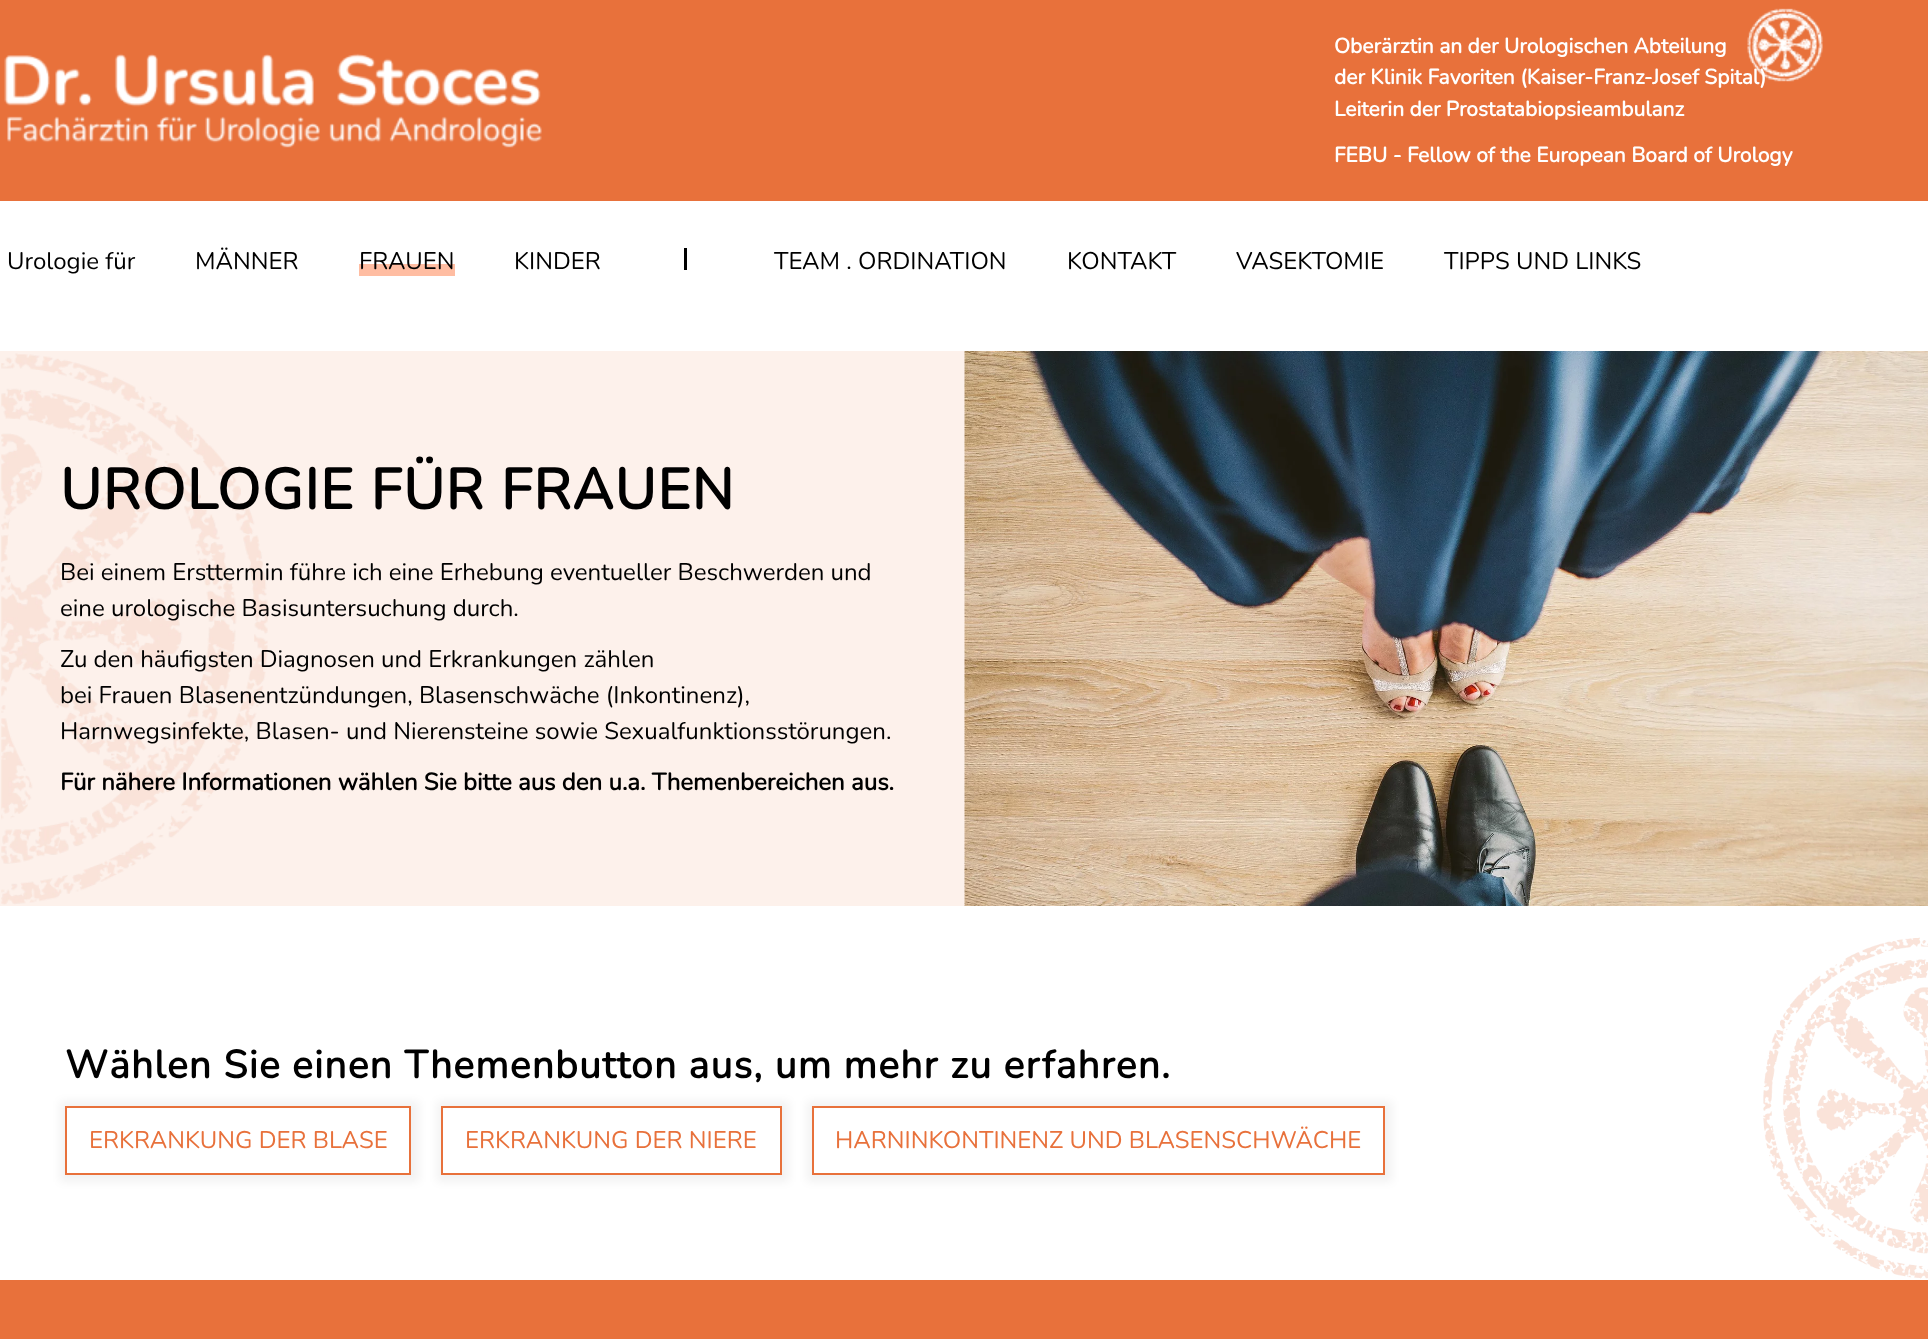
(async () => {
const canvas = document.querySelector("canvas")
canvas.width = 1928
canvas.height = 1339
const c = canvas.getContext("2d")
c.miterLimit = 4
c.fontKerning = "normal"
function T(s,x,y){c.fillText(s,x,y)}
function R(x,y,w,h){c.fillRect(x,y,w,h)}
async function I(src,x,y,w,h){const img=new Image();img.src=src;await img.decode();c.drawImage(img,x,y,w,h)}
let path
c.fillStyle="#fff"
R(0,0,1928,1339)
c.fillStyle="#e8713b"
R(0,0,1928,201)
await I("1.png",4,53,538,95)
c.font="bold 21px Nunito"
c.fillStyle="#fff"
T("der Klinik Favoriten (Kaiser-Franz-Josef Spital)",1334,84)
await I("2.png",1747,8,76,74)
T("Oberärztin an der Urologischen Abteilung",1334,53)
T("Leiterin der Prostatabiopsieambulanz",1334,116)
T("FEBU - Fellow of the European Board of Urology",1334,162)
c.font="200 24px Nunito"
c.fillStyle="#000"
T("Urologie für",7,269)
T("MÄNNER",195,269)
c.fillStyle="#ffbda2"
R(359,264,96,12)
c.fillStyle="#000"
T("FRAUEN",359,269)
T("KINDER",514,269)
R(684,248,3,22)
T("TEAM . ORDINATION",774,269)
T("KONTAKT",1067,269)
T("VASEKTOMIE",1236,269)
T("TIPPS UND LINKS",1444,269)
c.fillStyle="#fdf1eb"
R(0,351,965,555)
await I("3.png",1,353,267,552)
c.letterSpacing="1.2px"
c.font="bold 57px Nunito"
c.fillStyle="#000"
T("UROLOGIE FÜR FRAUEN",60,509)
c.letterSpacing="0px"
c.font="200 24px Nunito"
T("Bei einem Ersttermin führe ich eine Erhebung eventueller Beschwerden und",60,580)
T("eine urologische Basisuntersuchung durch.",60,616)
T("Zu den häufigsten Diagnosen und Erkrankungen zählen",60,667)
T("bei Frauen Blasenentzündungen, Blasenschwäche (Inkontinenz),",60,703)
T("Harnwegsinfekte, Blasen- und Nierensteine sowie Sexualfunktionsstörungen.",60,739)
c.font="bold 24px Nunito"
T("Für nähere Informationen wählen Sie bitte aus den u.a. Themenbereichen aus.",60,790)
await I("4.png",964,351,964,555)
await I("5.png",1763,937,165,342)
c.letterSpacing="1.2px"
c.font="bold 39px Nunito"
T("Wählen Sie einen Themenbutton aus, um mehr zu erfahren.",65,1078)
c.save()
path = new Path2D("M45 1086h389v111h-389zm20 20h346v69h-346z")
c.clip(path,"evenodd")
c.fillStyle="#0000000d"
c.filter="blur(4.5px)"
c.beginPath()
c.rect(60,1101,359,81)
c.fill()
c.filter="none"
c.restore()
c.strokeStyle="#e8713b"
c.lineWidth=2
c.strokeRect(66,1107,344,67)
c.letterSpacing="0px"
c.font="200 24px Nunito"
c.fillStyle="#e8713b"
T("ERKRANKUNG DER BLASE",89,1148)
c.save()
path = new Path2D("M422 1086h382v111h-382zm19 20h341v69h-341z")
c.clip(path,"evenodd")
c.fillStyle="#0000000d"
c.filter="blur(4.5px)"
c.beginPath()
c.rect(437,1101,352,81)
c.fill()
c.filter="none"
c.restore()
c.strokeRect(442,1107,339,67)
T("ERKRANKUNG DER NIERE",465,1148)
c.save()
path = new Path2D("M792 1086h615v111h-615zm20 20h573v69h-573z")
c.clip(path,"evenodd")
c.fillStyle="#0000000d"
c.filter="blur(4.5px)"
c.beginPath()
c.rect(807,1101,585,81)
c.fill()
c.filter="none"
c.restore()
c.strokeRect(813,1107,571,67)
T("HARNINKONTINENZ UND BLASENSCHWÄCHE",835,1148)
R(0,1280,1928,59)
})()
